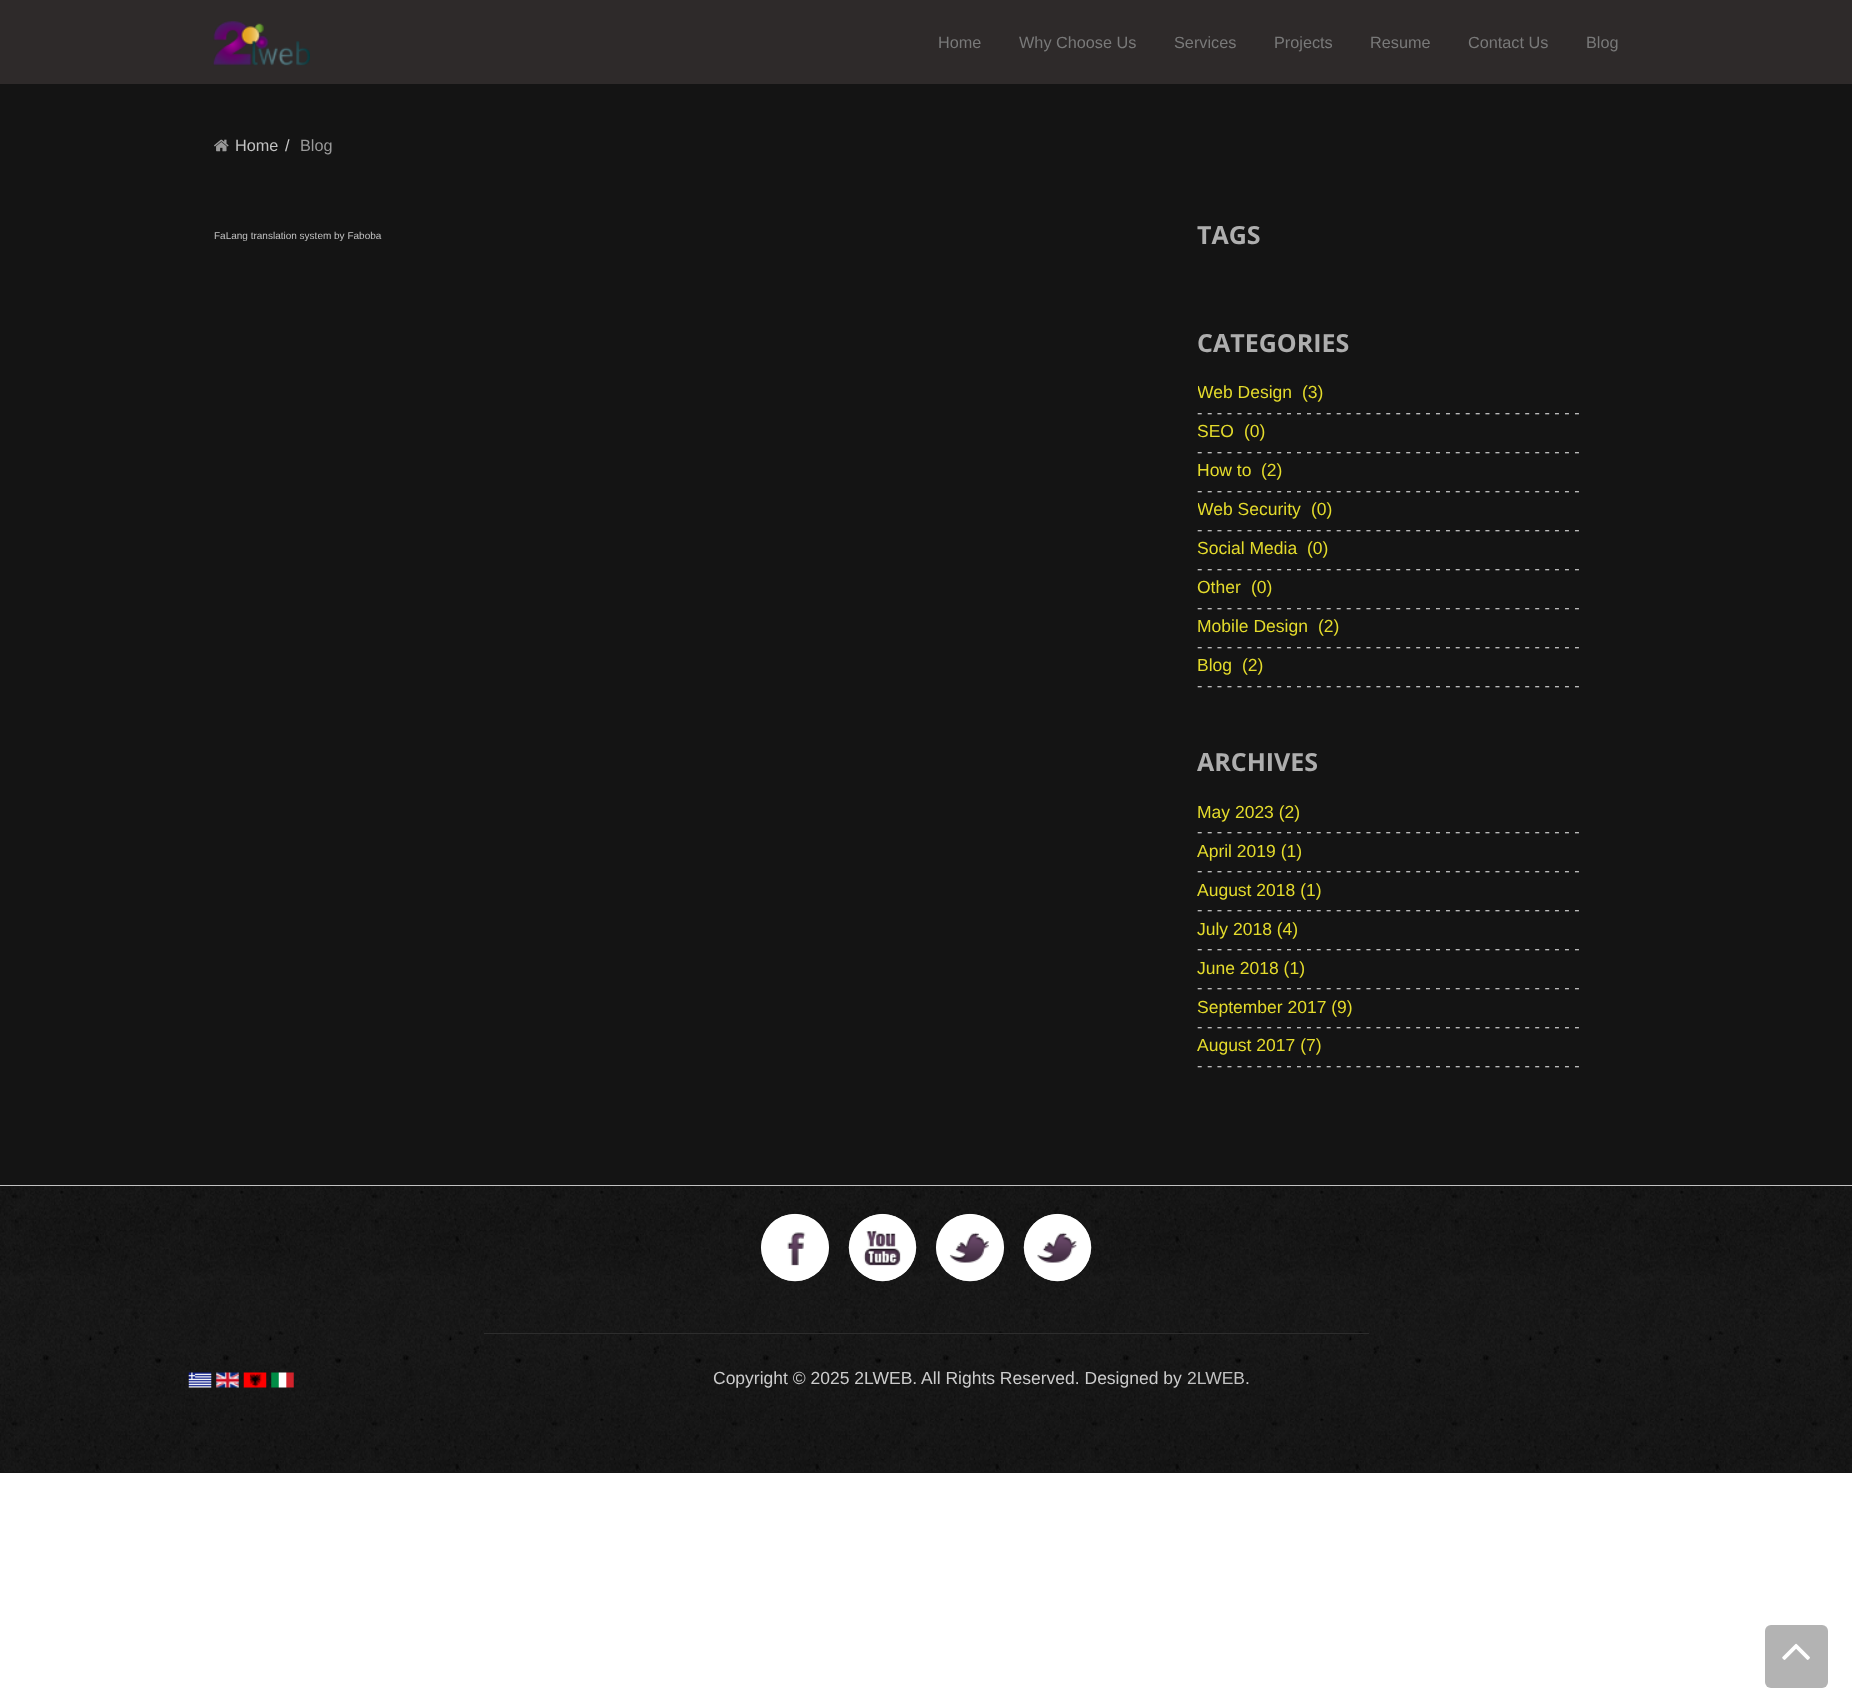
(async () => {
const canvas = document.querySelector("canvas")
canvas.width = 1852
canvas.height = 1700
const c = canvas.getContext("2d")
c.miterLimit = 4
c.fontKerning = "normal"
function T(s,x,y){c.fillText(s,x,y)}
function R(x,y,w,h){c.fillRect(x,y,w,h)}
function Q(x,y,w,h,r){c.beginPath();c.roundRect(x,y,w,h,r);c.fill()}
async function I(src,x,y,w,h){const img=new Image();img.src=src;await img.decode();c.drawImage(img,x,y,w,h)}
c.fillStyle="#fff"
R(0,0,1852,1700)
c.fillStyle="#141414"
R(0,84,1852,1389)
c.fillStyle="#2e2a2a"
R(0,0,1852,84)
await I("1.png",213,21,97,45)
c.font="16.25px Liberation Sans"
c.fillStyle="#797979"
T("Home",938,48)
T("Why Choose Us",1019,48)
T("Services",1174,48)
T("Projects",1274,48)
T("Resume",1370,48)
T("Contact Us",1468,48)
T("Blog",1586,48)
await I("2.png",214,139,15,13)
c.fillStyle="#c2c2c2"
T("Home",235,151)
c.fillStyle="#ccc"
T("/",285,151)
c.fillStyle="#999"
T("Blog",300,151)
c.font="10px Liberation Sans"
c.fillStyle="#c2c2c2"
T("FaLang translation system by Faboba",214,239)
c.font="bold 25px Open Sans"
c.fillStyle="#aeaeae"
T("TAGS",1197,244)
T("CATEGORIES",1197,352)
c.save()
c.beginPath()
c.rect(1198,384,441,311)
c.clip()
c.font="17.5px Liberation Sans"
c.fillStyle="#e4db2c"
T("Web Design",1197,398)
c.restore()
c.font="17.5px Liberation Sans"
c.fillStyle="#e4db2c"
T("(3)",1302,398)
c.font="16.25px Liberation Sans"
c.fillStyle="#c2c2c2"
T("- - - - - - - - - - - - - - - - - - - - - - - - - - - - - - - - - - - - - - -",1197,418)
c.font="17.5px Liberation Sans"
c.fillStyle="#e4db2c"
T("SEO",1197,437)
T("(0)",1244,437)
c.font="16.25px Liberation Sans"
c.fillStyle="#c2c2c2"
T("- - - - - - - - - - - - - - - - - - - - - - - - - - - - - - - - - - - - - - -",1197,457)
c.font="17.5px Liberation Sans"
c.fillStyle="#e4db2c"
T("How to",1197,476)
T("(2)",1261,476)
c.font="16.25px Liberation Sans"
c.fillStyle="#c2c2c2"
T("- - - - - - - - - - - - - - - - - - - - - - - - - - - - - - - - - - - - - - -",1197,496)
c.save()
c.beginPath()
c.rect(1198,384,441,311)
c.clip()
c.font="17.5px Liberation Sans"
c.fillStyle="#e4db2c"
T("Web Security",1197,515)
c.restore()
c.font="17.5px Liberation Sans"
c.fillStyle="#e4db2c"
T("(0)",1311,515)
c.font="16.25px Liberation Sans"
c.fillStyle="#c2c2c2"
T("- - - - - - - - - - - - - - - - - - - - - - - - - - - - - - - - - - - - - - -",1197,535)
c.font="17.5px Liberation Sans"
c.fillStyle="#e4db2c"
T("Social Media",1197,554)
T("(0)",1307,554)
c.font="16.25px Liberation Sans"
c.fillStyle="#c2c2c2"
T("- - - - - - - - - - - - - - - - - - - - - - - - - - - - - - - - - - - - - - -",1197,574)
c.font="17.5px Liberation Sans"
c.fillStyle="#e4db2c"
T("Other",1197,593)
T("(0)",1251,593)
c.font="16.25px Liberation Sans"
c.fillStyle="#c2c2c2"
T("- - - - - - - - - - - - - - - - - - - - - - - - - - - - - - - - - - - - - - -",1197,613)
c.font="17.5px Liberation Sans"
c.fillStyle="#e4db2c"
T("Mobile Design",1197,632)
T("(2)",1318,632)
c.font="16.25px Liberation Sans"
c.fillStyle="#c2c2c2"
T("- - - - - - - - - - - - - - - - - - - - - - - - - - - - - - - - - - - - - - -",1197,652)
c.font="17.5px Liberation Sans"
c.fillStyle="#e4db2c"
T("Blog",1197,671)
T("(2)",1242,671)
c.font="16.25px Liberation Sans"
c.fillStyle="#c2c2c2"
T("- - - - - - - - - - - - - - - - - - - - - - - - - - - - - - - - - - - - - - -",1197,691)
c.font="bold 25px Open Sans"
c.fillStyle="#aeaeae"
T("ARCHIVES",1197,771)
c.font="17.5px Liberation Sans"
c.fillStyle="#e4db2c"
T("May 2023 (2)",1197,818)
c.font="16.25px Liberation Sans"
c.fillStyle="#c2c2c2"
T("- - - - - - - - - - - - - - - - - - - - - - - - - - - - - - - - - - - - - - -",1197,837)
c.font="17.5px Liberation Sans"
c.fillStyle="#e4db2c"
T("April 2019 (1)",1197,857)
c.font="16.25px Liberation Sans"
c.fillStyle="#c2c2c2"
T("- - - - - - - - - - - - - - - - - - - - - - - - - - - - - - - - - - - - - - -",1197,876)
c.font="17.5px Liberation Sans"
c.fillStyle="#e4db2c"
T("August 2018 (1)",1197,896)
c.font="16.25px Liberation Sans"
c.fillStyle="#c2c2c2"
T("- - - - - - - - - - - - - - - - - - - - - - - - - - - - - - - - - - - - - - -",1197,915)
c.font="17.5px Liberation Sans"
c.fillStyle="#e4db2c"
T("July 2018 (4)",1197,935)
c.font="16.25px Liberation Sans"
c.fillStyle="#c2c2c2"
T("- - - - - - - - - - - - - - - - - - - - - - - - - - - - - - - - - - - - - - -",1197,954)
c.font="17.5px Liberation Sans"
c.fillStyle="#e4db2c"
T("June 2018 (1)",1197,974)
c.font="16.25px Liberation Sans"
c.fillStyle="#c2c2c2"
T("- - - - - - - - - - - - - - - - - - - - - - - - - - - - - - - - - - - - - - -",1197,993)
c.font="17.5px Liberation Sans"
c.fillStyle="#e4db2c"
T("September 2017 (9)",1197,1013)
c.font="16.25px Liberation Sans"
c.fillStyle="#c2c2c2"
T("- - - - - - - - - - - - - - - - - - - - - - - - - - - - - - - - - - - - - - -",1197,1032)
c.font="17.5px Liberation Sans"
c.fillStyle="#e4db2c"
T("August 2017 (7)",1197,1051)
c.font="16.25px Liberation Sans"
c.fillStyle="#c2c2c2"
T("- - - - - - - - - - - - - - - - - - - - - - - - - - - - - - - - - - - - - - -",1197,1071)
await I("3.png",0,1186,1852,286)
R(0,1185,1852,1)
c.fillStyle="#2d2d2d"
R(484,1333,885,1)
c.fillStyle="#fff"
Q(761,1214,68,67,33.5)
await I("4.png",761,1213,68,69)
c.beginPath()
c.arc(882.5,1247.5,33.5,0,7)
c.fill()
await I("5.png",848,1213,69,69)
Q(936,1214,68,67,33.5)
await I("6.png",936,1213,68,69)
c.beginPath()
c.arc(1057.5,1247.5,33.5,0,7)
c.fill()
await I("7.png",1023,1213,69,69)
await I("8.png",188,1372,24,16)
await I("9.png",216,1372,23,16)
await I("10.png",243,1372,24,16)
await I("11.png",271,1372,23,16)
c.font="17.5px Liberation Sans"
c.fillStyle="#ccc"
T("Copyright © 2025 2LWEB. All Rights Reserved. Designed by",713,1384)
c.fillStyle="#c2c2c2"
T("2LWEB",1187,1384)
c.fillStyle="#ccc"
T(".",1245,1384)
c.fillStyle="#b3b3b3"
Q(1765,1625,63,63,6)
await I("12.png",1782,1643,28,17)
})()
